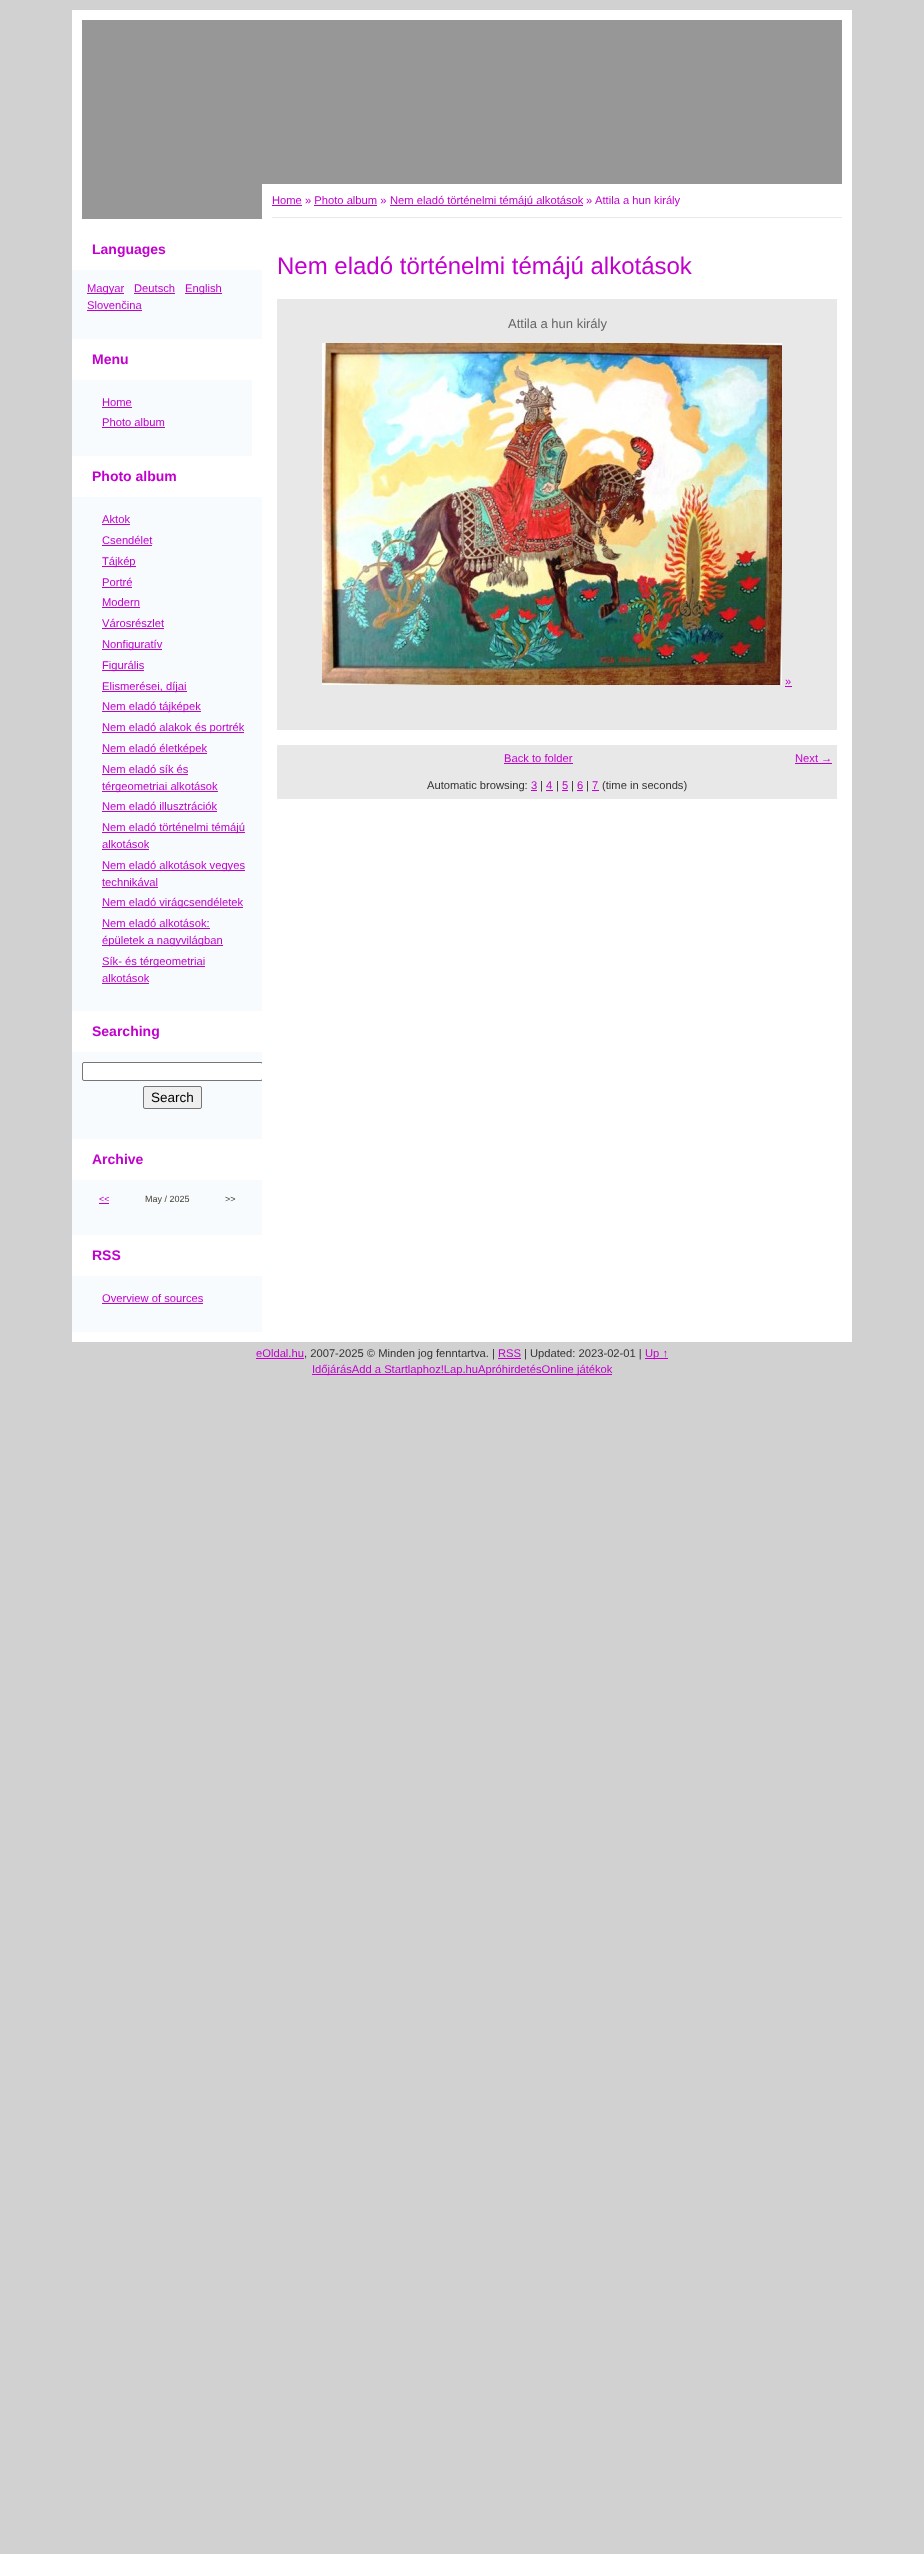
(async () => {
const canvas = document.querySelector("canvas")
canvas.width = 924
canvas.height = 2554
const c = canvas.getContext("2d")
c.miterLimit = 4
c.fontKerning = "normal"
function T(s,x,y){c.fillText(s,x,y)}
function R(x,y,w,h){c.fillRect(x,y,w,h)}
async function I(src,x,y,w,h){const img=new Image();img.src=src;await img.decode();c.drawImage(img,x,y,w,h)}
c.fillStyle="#d1d1d1"
R(0,0,924,2554)
c.fillStyle="#fff"
R(72,10,780,1332)
c.fillStyle="#979797"
R(82,20,760,199)
c.fillStyle="#f7fbfe"
R(72,270,190,69)
c.font="bold 14px Liberation Sans"
c.fillStyle="#c200ce"
T("Languages",92,254)
R(87,293,37,1)
c.font="11.2px Liberation Sans"
T("Magyar",87,292)
T("Deutsch",134,292)
R(134,293,41,1)
R(185,293,37,1)
T("English",185,292)
T("Slovenčina",87,309)
R(87,310,55,1)
c.font="bold 14px Liberation Sans"
T("Menu",92,364)
c.fillStyle="#f7fbfe"
R(72,380,180,76)
c.font="11.2px Liberation Sans"
c.fillStyle="#c200ce"
T("Home",102,406)
R(102,407,30,1)
T("Photo album",102,426)
R(102,427,63,1)
c.fillStyle="#f7fbfe"
R(72,497,190,835)
c.font="bold 14px Liberation Sans"
c.fillStyle="#c200ce"
T("Photo album",92,481)
c.font="11.2px Liberation Sans"
T("Aktok",102,523)
R(102,524,28,1)
T("Csendélet",102,544)
R(102,545,50,1)
R(102,566,34,1)
T("Tájkép",102,565)
T("Portré",102,586)
R(102,587,30,1)
T("Modern",102,606)
R(102,607,38,1)
T("Városrészlet",102,627)
R(102,628,62,1)
R(102,649,60,1)
T("Nonfiguratív",102,648)
R(102,670,42,1)
T("Figurális",102,669)
R(102,691,85,1)
T("Elismerései, díjai",102,690)
R(102,711,99,1)
T("Nem eladó tájképek",102,710)
R(102,732,142,1)
T("Nem eladó alakok és portrék",102,731)
R(102,753,105,1)
T("Nem eladó életképek",102,752)
T("Nem eladó sík és",102,773)
R(102,774,86,1)
R(102,791,116,1)
T("térgeometriai alkotások",102,790)
T("Nem eladó illusztrációk",102,810)
R(102,811,115,1)
R(102,832,143,1)
T("Nem eladó történelmi témájú",102,831)
T("alkotások",102,848)
R(102,849,47,1)
R(102,870,143,1)
T("Nem eladó alkotások vegyes",102,869)
T("technikával",102,886)
R(102,887,56,1)
R(102,907,141,1)
T("Nem eladó virágcsendéletek",102,906)
T("Nem eladó alkotások:",102,927)
R(102,928,108,1)
R(102,945,121,1)
T("épületek a nagyvilágban",102,944)
R(102,966,103,1)
T("Sík- és térgeometriai",102,965)
T("alkotások",102,982)
R(102,983,47,1)
c.fillStyle="#fff"
R(72,1011,190,41)
c.font="bold 14px Liberation Sans"
c.fillStyle="#c200ce"
T("Searching",92,1036)
c.save()
c.beginPath()
c.rect(72,456,190,876)
c.clip()
c.fillStyle="#fff"
c.beginPath()
c.roundRect(82.5,1062.5,180,18,1.5)
c.fill()
c.strokeStyle="#767676"
c.stroke()
c.restore()
c.fillStyle="#efefef"
c.beginPath()
c.roundRect(143.5,1086.5,58,22,1.5)
c.fill()
c.strokeStyle="#767676"
c.stroke()
c.font="13.5px Liberation Sans"
c.fillStyle="#000"
T("Search",151,1102)
c.fillStyle="#fff"
R(72,1139,190,41)
c.font="bold 14px Liberation Sans"
c.fillStyle="#c200ce"
T("Archive",92,1164)
c.font="9px Liberation Sans"
T("<<",99,1202)
R(99,1203,10,1)
c.fillStyle="#464235"
T("May / 2025",145,1202)
T(">>",225,1202)
c.fillStyle="#fff"
R(72,1235,190,41)
c.font="bold 14px Liberation Sans"
c.fillStyle="#c200ce"
T("RSS",92,1260)
c.font="11.2px Liberation Sans"
T("Overview of sources",102,1302)
R(102,1303,101,1)
c.fillStyle="#fff"
R(262,184,580,35)
c.fillStyle="#e8e8e8"
R(272,217,570,1)
c.fillStyle="#c200ce"
T("Home » Photo album »",272,204)
R(272,205,30,1)
R(390,205,193,1)
T("Nem eladó történelmi témájú alkotások",390,204)
T("»",586,204)
T("Attila a hun király",595,204)
R(314,205,63,1)
c.font="24px Liberation Sans"
T("Nem eladó történelmi témájú alkotások",277,274)
c.fillStyle="#e8e8e8"
R(277,299,560,431)
c.font="13px Liberation Sans"
c.fillStyle="#666"
T("Attila a hun király",508,328)
await I("1.png",322,343,460,342)
c.font="11.2px Liberation Sans"
c.fillStyle="#c200ce"
T("»",785,685)
R(785,686,7,1)
c.fillStyle="#e8e8e8"
R(277,745,560,54)
c.fillStyle="#c200ce"
T("Back to folder",504,762)
R(504,763,69,1)
T("Next →",795,762)
R(795,763,37,1)
c.fillStyle="#333"
T("Automatic browsing:",427,789)
c.fillStyle="#c200ce"
T("3",531,789)
R(531,790,6,1)
c.fillStyle="#333"
T("|",540,789)
c.fillStyle="#c200ce"
T("4",546,789)
R(546,790,7,1)
c.fillStyle="#333"
T("|",556,789)
c.fillStyle="#c200ce"
T("5",562,789)
R(562,790,6,1)
c.fillStyle="#333"
T("|",571,789)
c.fillStyle="#c200ce"
T("6",577,789)
R(577,790,6,1)
c.fillStyle="#333"
T("|",586,789)
c.fillStyle="#c200ce"
T("7",592,789)
R(592,790,7,1)
c.fillStyle="#333"
T("(time in seconds)",602,789)
c.fillStyle="#c200ce"
T("eOldal.hu",256,1357)
R(256,1358,48,1)
c.fillStyle="#333"
T(", 2007-2025 © Minden jog fenntartva. |",304,1357)
c.fillStyle="#c200ce"
T("RSS",498,1357)
R(498,1358,23,1)
c.fillStyle="#333"
T("| Updated: 2023-02-01 |",524,1357)
c.fillStyle="#c200ce"
R(645,1358,23,1)
T("Up ↑",645,1357)
R(312,1374,300,1)
T("IdőjárásAdd a Startlaphoz!Lap.huApróhirdetésOnline játékok",312,1373)
})()
